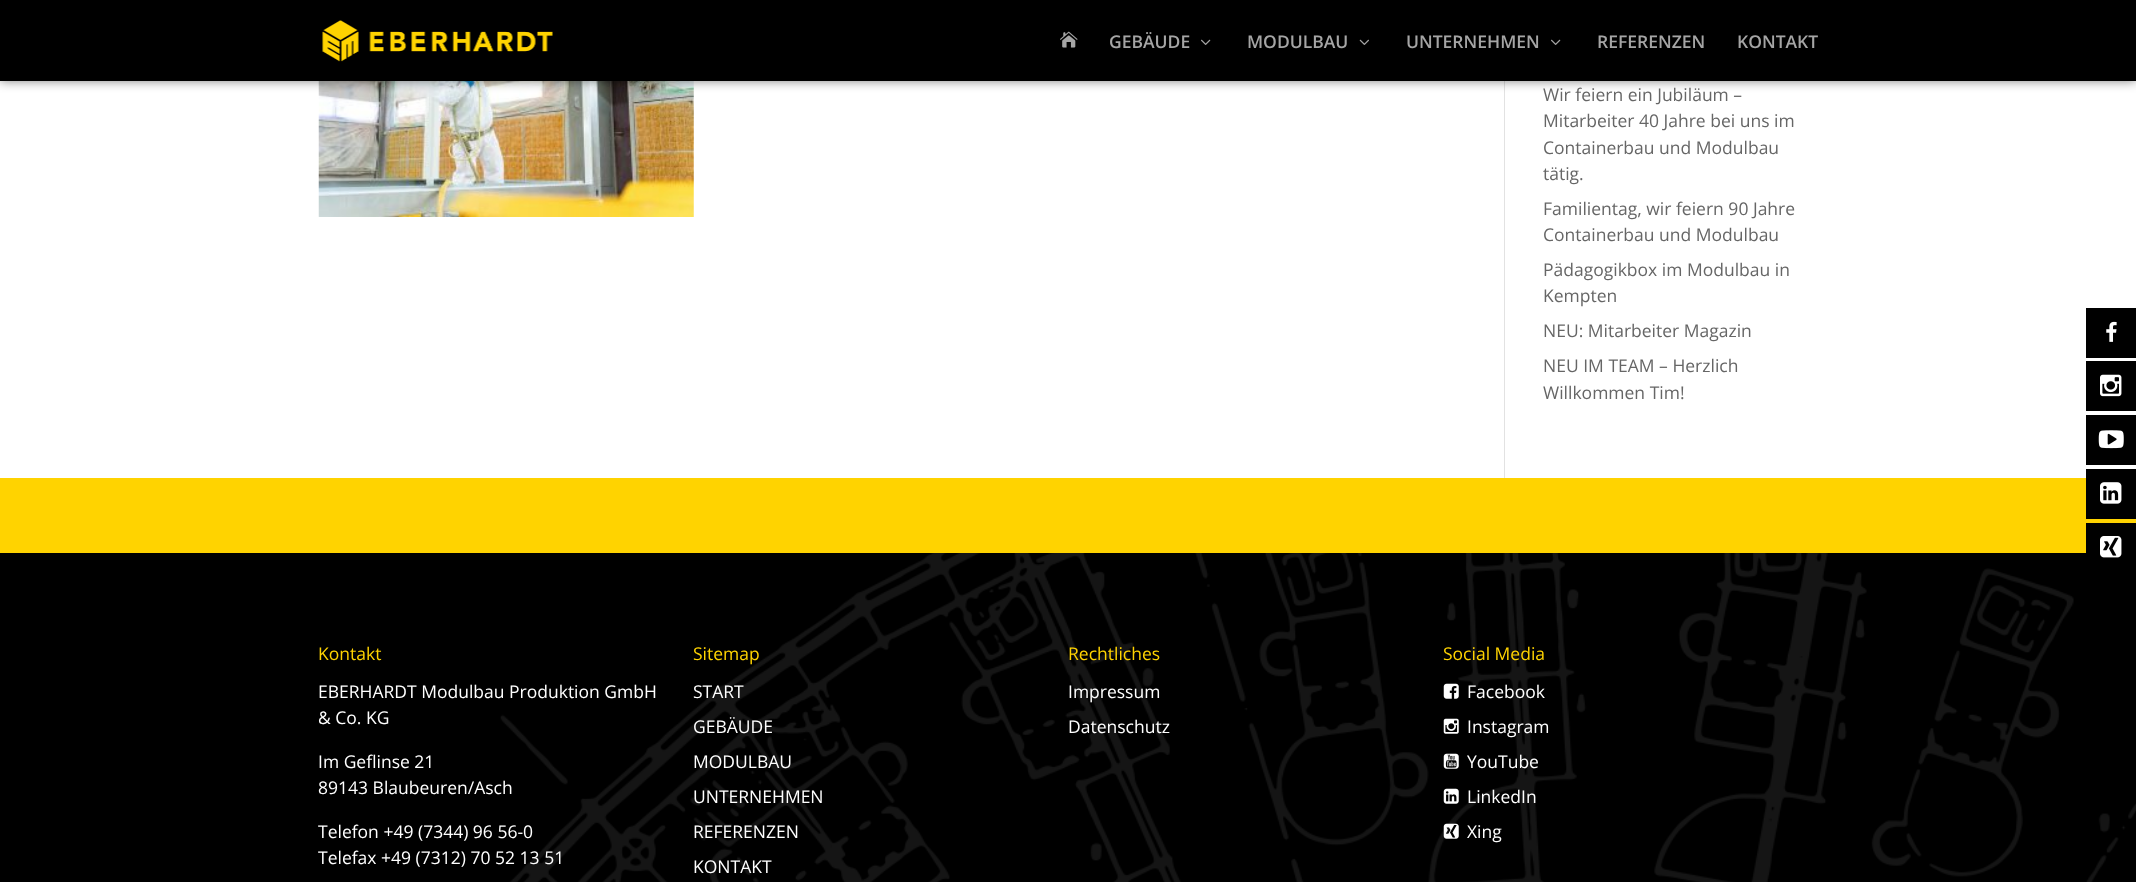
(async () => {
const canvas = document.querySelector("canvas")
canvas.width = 2136
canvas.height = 882
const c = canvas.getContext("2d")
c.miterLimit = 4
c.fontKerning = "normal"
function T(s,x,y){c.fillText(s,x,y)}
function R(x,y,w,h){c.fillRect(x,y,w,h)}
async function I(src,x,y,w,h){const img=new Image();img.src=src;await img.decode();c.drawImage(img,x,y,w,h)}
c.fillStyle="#fff"
R(0,0,2136,882)
c.fillStyle="#e2e2e2"
R(1504,81,1,397)
await I("5.png",318,81,376,136)
c.fillStyle="#00000080"
c.filter="blur(5.5px)"
c.beginPath()
c.rect(0,0,2136,81)
c.fill()
c.filter="none"
c.fillStyle="#000"
R(0,0,2136,81)
await I("1.png",322,20,231,42)
await I("2.png",1060,31,18,17)
c.font="600 17.5px Open Sans"
c.fillStyle="#a5a5a5"
T("GEBÄUDE",1109,48)
await I("3.png",1201,39,10,6)
T("MODULBAU",1247,48)
await I("4.png",1359,39,10,6)
T("UNTERNEHMEN",1406,48)
await I("3.png",1551,39,10,6)
T("REFERENZEN",1597,48)
T("KONTAKT",1737,48)
c.font="17.5px Open Sans"
c.fillStyle="#666"
T("Wir feiern ein Jubiläum –",1543,101)
T("Mitarbeiter 40 Jahre bei uns im",1543,127)
T("Containerbau und Modulbau",1543,154)
T("tätig.",1543,180)
T("Familientag, wir feiern 90 Jahre",1543,215)
T("Containerbau und Modulbau",1543,241)
T("Pädagogikbox im Modulbau in",1543,276)
T("Kempten",1543,302)
T("NEU: Mitarbeiter Magazin",1543,337)
T("NEU IM TEAM – Herzlich",1543,372)
T("Willkommen Tim!",1543,399)
c.fillStyle="#000"
R(0,553,2136,329)
await I("6.png",500,553,1636,329)
c.fillStyle="#ffd300"
R(0,478,2136,75)
T("Kontakt",318,660)
c.fillStyle="#fff"
T("EBERHARDT Modulbau Produktion GmbH",318,698)
T("& Co. KG",318,724)
T("Im Geflinse 21",318,768)
T("89143 Blaubeuren/Asch",318,794)
T("Telefon +49 (7344) 96 56-0",318,838)
T("Telefax +49 (7312) 70 52 13 51",318,864)
c.fillStyle="#ffd300"
T("Sitemap",693,660)
c.fillStyle="#fff"
T("START",693,698)
T("GEBÄUDE",693,733)
T("MODULBAU",693,768)
T("UNTERNEHMEN",693,803)
T("REFERENZEN",693,838)
T("KONTAKT",693,873)
c.fillStyle="#ffd300"
T("Rechtliches",1068,660)
c.fillStyle="#fff"
T("Impressum",1068,698)
T("Datenschutz",1068,733)
c.fillStyle="#ffd300"
T("Social Media",1443,660)
await I("7.png",1443,683,16,16)
c.fillStyle="#fff"
T("Facebook",1467,698)
await I("8.png",1443,718,16,16)
T("Instagram",1467,733)
await I("9.png",1443,753,16,16)
T("YouTube",1467,768)
await I("10.png",1443,788,16,16)
T("LinkedIn",1467,803)
await I("11.png",1443,823,16,16)
T("Xing",1467,838)
c.fillStyle="#000"
R(2086,308,50,50)
await I("12.png",2106,321,11,21)
R(2086,361,50,50)
await I("13.png",2100,374,22,23)
R(2086,415,50,50)
await I("14.png",2098,430,26,19)
R(2086,469,50,50)
await I("15.png",2100,482,22,22)
R(2086,523,50,36)
await I("16.png",2100,536,22,22)
})()
